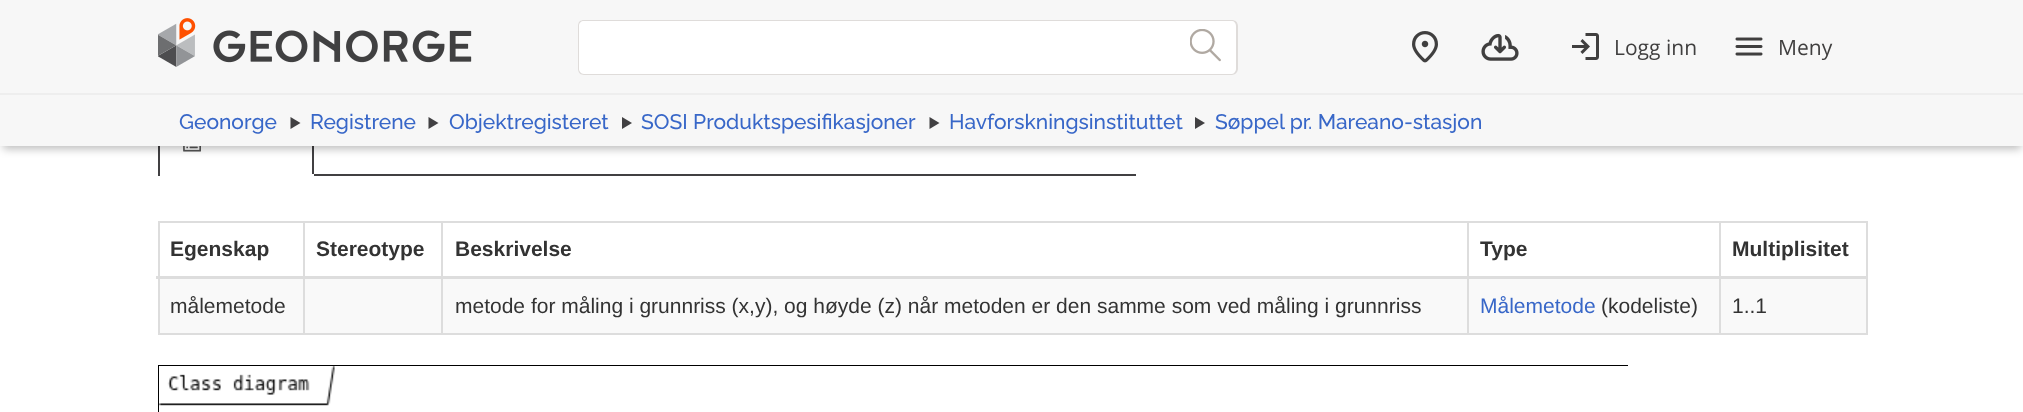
(async () => {
const canvas = document.querySelector("canvas")
canvas.width = 2023
canvas.height = 412
const c = canvas.getContext("2d")
c.miterLimit = 4
c.fontKerning = "normal"
function T(s,x,y){c.fillText(s,x,y)}
function R(x,y,w,h){c.fillRect(x,y,w,h)}
async function I(src,x,y,w,h){const img=new Image();img.src=src;await img.decode();c.drawImage(img,x,y,w,h)}
let path
c.fillStyle="#fff"
R(0,0,2023,412)
c.fillStyle="#414042"
R(312,146,2,30)
R(158,146,2,30)
await I("7.png",183,146,18,6)
c.fillStyle="#00000042"
c.filter="blur(4px)"
c.beginPath()
c.rect(3,102,2018,47)
c.fill()
c.filter="none"
c.fillStyle="#f7f7f7"
R(0,0,2023,93)
await I("1.png",158,18,314,49)
c.fillStyle="#fff"
c.beginPath()
c.roundRect(578,20,597,55,[6,0,0,6])
c.fill()
c.fillStyle="#dfdcda"
path = new Path2D("M584 20h590v55h-590c-4 0-6-3-6-6v-43c0-4 2-6 6-6zm0 1h590v53h-590c-3 0-5-3-5-5v-43c0-3 2-5 5-5z")
c.fill(path,"evenodd")
c.fillStyle="#fff"
c.beginPath()
c.roundRect(1175,20,63,55,[0,6,6,0])
c.fill()
c.fillStyle="#dfdcda"
path = new Path2D("M1174 20h58c3 0 6 2 6 6v43c0 3-3 6-6 6h-58zm0 1h58c2 0 4 2 4 5v43c0 2-2 5-4 5h-58z")
c.fill(path,"evenodd")
await I("2.png",1190,29,31,33)
await I("3.png",1412,31,26,32)
await I("4.png",1481,33,38,28)
await I("5.png",1572,33,27,27)
c.font="21px Open Sans"
c.fillStyle="#403f3f"
T("Logg inn",1614,55)
await I("6.png",1735,37,28,19)
T("Meny",1778,55)
c.fillStyle="#f7f7f7"
R(0,95,2023,51)
c.fillStyle="#eee"
R(0,93,2023,2)
c.font="500 21px Raleway"
c.fillStyle="#3867c8"
T("Geonorge",179,129)
c.fillStyle="#414042"
path = new Path2D("M300.5 123l-10 6v-12z")
c.fill(path)
c.fillStyle="#3867c8"
T("Registrene",310,129)
c.fillStyle="#414042"
path = new Path2D("M438.5 123l-10 6v-12z")
c.fill(path)
c.fillStyle="#3867c8"
T("Objektregisteret",449,129)
c.fillStyle="#414042"
path = new Path2D("M632 123l-10 6v-12z")
c.fill(path)
c.fillStyle="#3867c8"
T("SOSI Produktspesifikasjoner",641,129)
c.fillStyle="#414042"
path = new Path2D("M939.5 123l-10 6v-12z")
c.fill(path)
c.fillStyle="#3867c8"
T("Havforskningsinstituttet",949,129)
c.fillStyle="#414042"
path = new Path2D("M1205 123l-10 6v-12z")
c.fill(path)
c.fillStyle="#3867c8"
T("Søppel pr. Mareano-stasjon",1215,129)
c.fillStyle="#414042"
R(314,174,822,2)
c.fillStyle="#fff"
R(312,174,2,2)
c.fillStyle="#ddd"
R(158,221,1710,2)
R(1866,221,2,114)
R(158,333,1710,2)
R(158,221,2,114)
c.font="bold 21px Liberation Sans"
c.fillStyle="#333"
T("Egenskap",170,256)
T("Stereotype",316,256)
T("Beskrivelse",455,256)
T("Type",1480,256)
c.fillStyle="#f9f9f9"
R(160,279,1706,54)
c.fillStyle="#ddd"
R(303,221,2,114)
R(441,221,2,114)
R(1467,221,2,114)
R(1719,221,2,114)
R(156,276,1712,3)
c.fillStyle="#333"
T("Multiplisitet",1732,256)
c.font="21px Liberation Sans"
T("målemetode",170,313)
T("metode for måling i grunnriss (x,y), og høyde (z) når metoden er den samme som ved måling i grunnriss",455,313)
c.fillStyle="#3867c8"
T("Målemetode",1480,313)
c.fillStyle="#333"
T("(kodeliste)",1601,313)
T("1..1",1732,313)
c.strokeStyle="#000"
c.lineWidth=2
c.strokeRect(159,366,1468,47)
await I("8.png",159,366,1469,46)
})()
